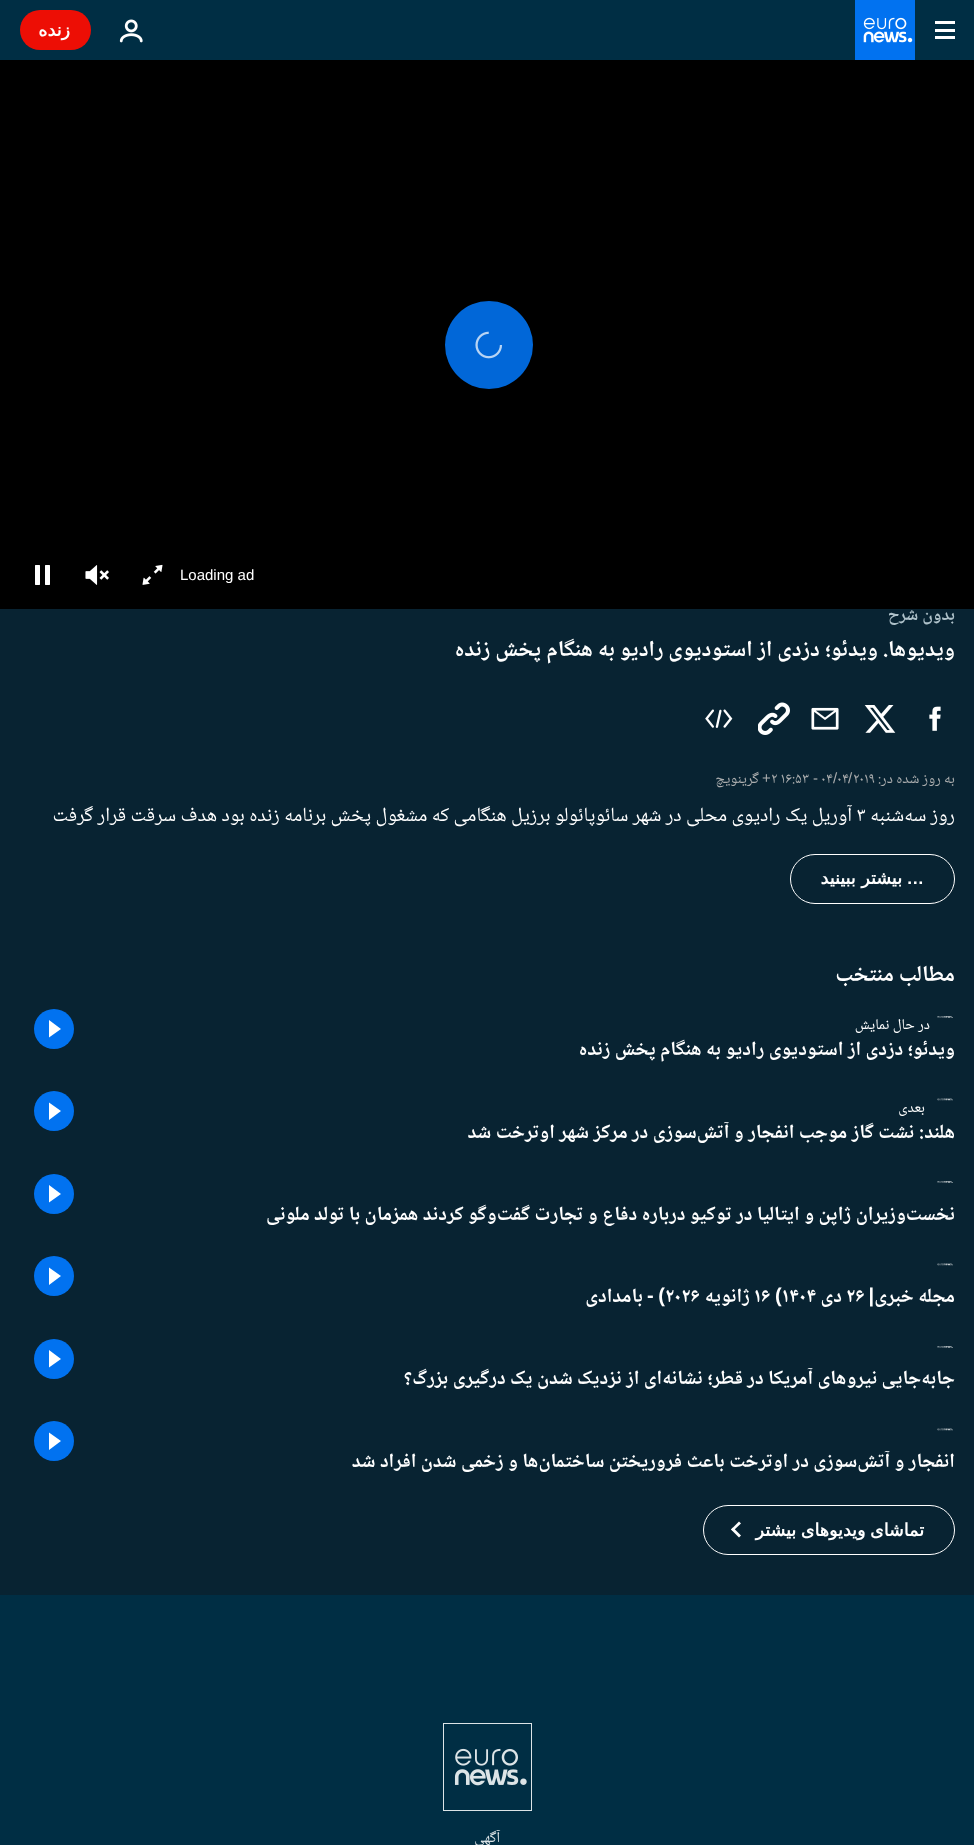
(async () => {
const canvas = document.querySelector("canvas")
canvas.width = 974
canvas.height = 1845
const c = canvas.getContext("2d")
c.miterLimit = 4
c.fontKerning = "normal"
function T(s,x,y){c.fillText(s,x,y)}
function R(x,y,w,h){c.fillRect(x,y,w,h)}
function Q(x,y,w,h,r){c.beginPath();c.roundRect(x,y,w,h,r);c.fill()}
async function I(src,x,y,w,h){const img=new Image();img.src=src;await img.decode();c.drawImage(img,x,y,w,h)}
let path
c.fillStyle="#082332"
R(0,0,974,1845)
c.fillStyle="#002e44"
R(0,0,974,60)
c.fillStyle="#fff"
R(935,21,20,3)
R(935,29,20,3)
R(935,36,20,3)
await I("1.png",855,0,60,60)
await I("2.png",119,19,24,24)
c.fillStyle="#ed0e05"
Q(20,10,71,40,20)
c.letterSpacing="-0.5px"
c.direction="rtl"
c.font="bold 17.5px DejaVu Sans"
c.fillStyle="#fff"
T("زنده",70,36)
c.fillStyle="#000"
R(0,60,974,549)
c.fillStyle="#0167d8"
c.beginPath()
c.arc(489,345,44,0,7)
c.fill()
await I("3.png",475,331,28,28)
c.letterSpacing="0px"
c.direction="ltr"
c.font="15px Liberation Sans"
c.fillStyle="#fff"
T("Loading ad",180,580)
await I("4.png",142,564,21,21)
await I("5.png",85,565,24,20)
await I("6.png",35,565,15,20)
c.direction="rtl"
c.font="bold 17.5px Noto Naskh Arabic"
c.fillStyle="#aec1c9"
T("بدون شرح",955,620)
c.font="bold 22.5px Noto Naskh Arabic"
c.fillStyle="#fff"
T("ویدیوها.",955,656)
T("ویدئو؛ دزدی از استودیوی رادیو به هنگام پخش زنده",878,656)
await I("7.png",929,706,12,25)
await I("8.png",864,705,32,28)
await I("9.png",811,707,28,23)
await I("10.png",758,702,32,33)
await I("11.png",705,709,28,19)
c.font="15px Noto Naskh Arabic"
c.fillStyle="#abadae"
T("به روز شده در:",955,783)
c.direction="ltr"
T("۲۰۱۹",853,783)
c.font="15px Liberation Sans"
T("/",848,783)
c.font="15px Noto Naskh Arabic"
T("۰۴",837,783)
T("۰۴",821,783)
c.font="15px Liberation Sans"
T("/",833,783)
T("-",813,783)
c.font="15px Noto Naskh Arabic"
T("۲ ۱۶:۵۳",771,783)
c.font="15px Liberation Sans"
T("+",762,783)
c.direction="rtl"
c.font="15px Noto Naskh Arabic"
T("گرینویچ",759,783)
c.font="20px Noto Naskh Arabic"
c.fillStyle="#fff"
T("روز سه‌شنبه",955,821)
c.direction="ltr"
T("۳",856,821)
c.direction="rtl"
T("آوریل یک رادیوی محلی در شهر سائوپائولو برزیل هنگامی که مشغول پخش برنامه زنده بود هدف سرقت قرار گرفت",852,821)
c.beginPath()
c.roundRect(790.5,854.5,164,49,24.5)
c.strokeStyle="#fff"
c.stroke()
c.font="bold 17.5px Liberation Sans"
T("…",924,884)
c.font="bold 17.5px DejaVu Sans"
T("بیشتر ببینید",902,884)
c.font="bold 22.5px Noto Naskh Arabic"
T("مطالب منتخب",955,981)
await I("12.png",937,1016,16,2)
c.fillStyle="#0172f0"
c.beginPath()
c.arc(54,1029,20,0,7)
c.fill()
c.fillStyle="#fff"
path = new Path2D("M49 1037.5v-17.5l12 9z")
c.fill(path)
c.font="15px Noto Naskh Arabic"
T("در حال نمایش",930,1029)
c.font="bold 20px Noto Naskh Arabic"
T("ویدئو؛ دزدی از استودیوی رادیو به هنگام پخش زنده",955,1055)
await I("13.png",937,1098,16,3)
c.fillStyle="#0172f0"
c.beginPath()
c.arc(54,1111,20,0,7)
c.fill()
c.fillStyle="#fff"
path = new Path2D("M49 1120v-17.5l12 8.5z")
c.fill(path)
c.font="15px Noto Naskh Arabic"
T("بعدی",925,1112)
c.font="bold 20px Noto Naskh Arabic"
T("هلند: نشت گاز موجب انفجار و آتش‌سوزی در مرکز شهر اوترخت شد",955,1138)
await I("12.png",937,1181,16,2)
c.fillStyle="#0172f0"
c.beginPath()
c.arc(54,1194,20,0,7)
c.fill()
c.fillStyle="#fff"
path = new Path2D("M49 1202.5v-17.5l12 9z")
c.fill(path)
T("نخست‌وزیران ژاپن و ایتالیا در توکیو درباره دفاع و تجارت گفت‌وگو کردند همزمان با تولد ملونی",955,1220)
await I("13.png",937,1263,16,3)
c.fillStyle="#0172f0"
c.beginPath()
c.arc(54,1276,20,0,7)
c.fill()
c.fillStyle="#fff"
path = new Path2D("M49 1285v-17.5l12 8.5z")
c.fill(path)
T("مجله خبری",955,1302)
c.font="bold 20px Liberation Sans"
T("|",874,1302)
c.direction="ltr"
c.font="bold 20px Noto Naskh Arabic"
T("۲۶",846,1302)
c.direction="rtl"
T("دی",842,1302)
c.direction="ltr"
T("۱۴۰۴",782,1302)
c.font="bold 20px Liberation Sans"
T("(",775,1302)
c.font="bold 20px Noto Naskh Arabic"
T("۱۶",754,1302)
c.direction="rtl"
T("ژانویه",750,1302)
c.direction="ltr"
T("۲۰۲۶",665,1302)
c.wordSpacing="-1px"
c.direction="rtl"
c.font="bold 20px Liberation Sans"
T(") -",665,1302)
c.wordSpacing="0px"
c.font="bold 20px Noto Naskh Arabic"
T("بامدادی",643,1302)
await I("12.png",937,1346,16,2)
c.fillStyle="#0172f0"
c.beginPath()
c.arc(54,1359,20,0,7)
c.fill()
c.fillStyle="#fff"
path = new Path2D("M49 1367.5v-17.5l12 9z")
c.fill(path)
T("جابه‌جایی نیروهای آمریکا در قطر؛ نشانه‌ای از نزدیک شدن یک درگیری بزرگ؟",955,1384)
await I("13.png",937,1428,16,3)
c.fillStyle="#0172f0"
c.beginPath()
c.arc(54,1441,20,0,7)
c.fill()
c.fillStyle="#fff"
path = new Path2D("M49 1450v-17.5l12 8.5z")
c.fill(path)
T("انفجار و آتش‌سوزی در اوترخت باعث فروریختن ساختمان‌ها و زخمی شدن افراد شد",955,1467)
c.beginPath()
c.roundRect(703.5,1505.5,251,49,24.5)
c.stroke()
c.wordSpacing="-1px"
c.font="bold 17.5px DejaVu Sans"
T("تماشای ویدیوهای بیشتر",924,1536)
path = new Path2D("M739 1537.5l-8-8l2-2l8 8z")
c.fill(path)
path = new Path2D("M733 1531l-2-1.5l8-8l2 2z")
c.fill(path)
c.fillStyle="#002e44"
R(0,1595,974,250)
await I("14.png",443,1723,89,88)
c.wordSpacing="0px"
c.font="15px Noto Naskh Arabic"
c.fillStyle="#dce4e7"
T("آگهی",500,1842)
})()
